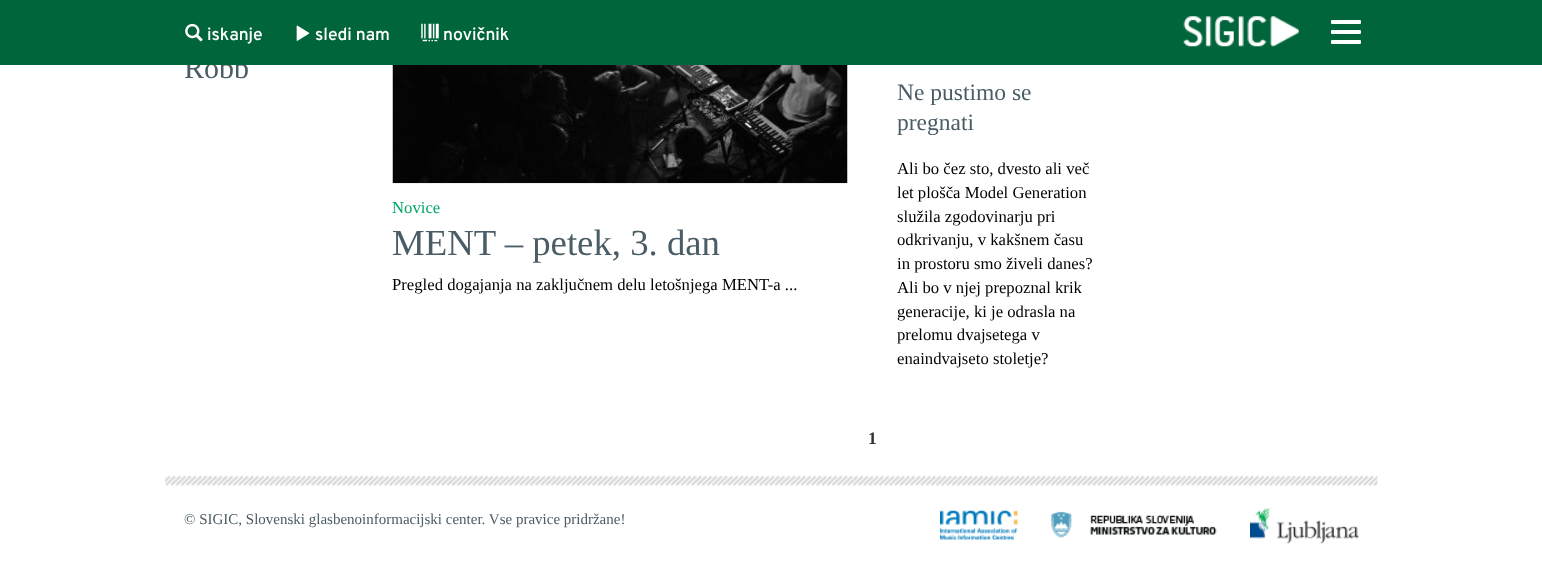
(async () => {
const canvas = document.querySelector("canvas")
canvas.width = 1542
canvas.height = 567
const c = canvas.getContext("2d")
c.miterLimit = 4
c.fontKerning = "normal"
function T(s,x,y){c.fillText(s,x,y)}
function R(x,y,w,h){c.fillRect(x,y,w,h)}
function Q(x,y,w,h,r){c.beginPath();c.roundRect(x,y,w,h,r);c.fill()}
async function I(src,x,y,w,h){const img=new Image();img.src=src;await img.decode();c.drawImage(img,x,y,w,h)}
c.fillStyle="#fff"
R(0,0,1542,567)
c.font="30px Liberation Serif"
c.fillStyle="#4a5c65"
T("Robb",184,78)
c.fillStyle="#00653a"
R(0,0,1542,65)
await I("1.png",185,23,18,19)
c.font="17.5px Overpass"
c.fillStyle="#fff"
T("iskanje",207,40)
await I("2.png",296,25,14,16)
T("sledi nam",315,40)
await I("3.png",421,23,18,19)
T("novičnik",443,40)
await I("4.png",1183,16,116,31)
Q(1331,20,30,4,1)
Q(1331,30,30,4,1)
Q(1331,40,30,4,1)
await I("5.png",392,65,456,119)
c.font="16.7px Liberation Serif"
c.fillStyle="#00a663"
T("Novice",392,213)
c.font="36.75px Liberation Serif"
c.fillStyle="#4a5c65"
T("MENT – petek, 3. dan",392,255)
c.font="16.7px Liberation Serif"
c.fillStyle="#000"
T("Pregled dogajanja na zaključnem delu letošnjega MENT-a ...",392,290)
c.font="23.5px Liberation Serif"
c.fillStyle="#4a5c65"
T("Ne pustimo se",897,100)
T("pregnati",897,130)
c.font="16.7px Liberation Serif"
c.fillStyle="#000"
T("Ali bo čez sto, dvesto ali več",897,174)
T("let plošča Model Generation",897,198)
T("služila zgodovinarju pri",897,222)
T("odkrivanju, v kakšnem času",897,245)
T("in prostoru smo živeli danes?",897,269)
T("Ali bo v njej prepoznal krik",897,293)
T("generacije, ki je odrasla na",897,317)
T("prelomu dvajsetega v",897,340)
T("enaindvajseto stoletje?",897,364)
c.font="bold 17.5px Liberation Serif"
c.fillStyle="#333"
T("1",868,444)
await I("6.png",165,475,1213,11)
c.font="15px Liberation Serif"
c.fillStyle="#4a5c65"
T("© SIGIC, Slovenski glasbenoinformacijski center. Vse pravice pridržane!",184,524)
await I("7.png",940,510,78,30)
await I("8.png",1051,511,166,27)
await I("9.png",1250,508,109,36)
})()
